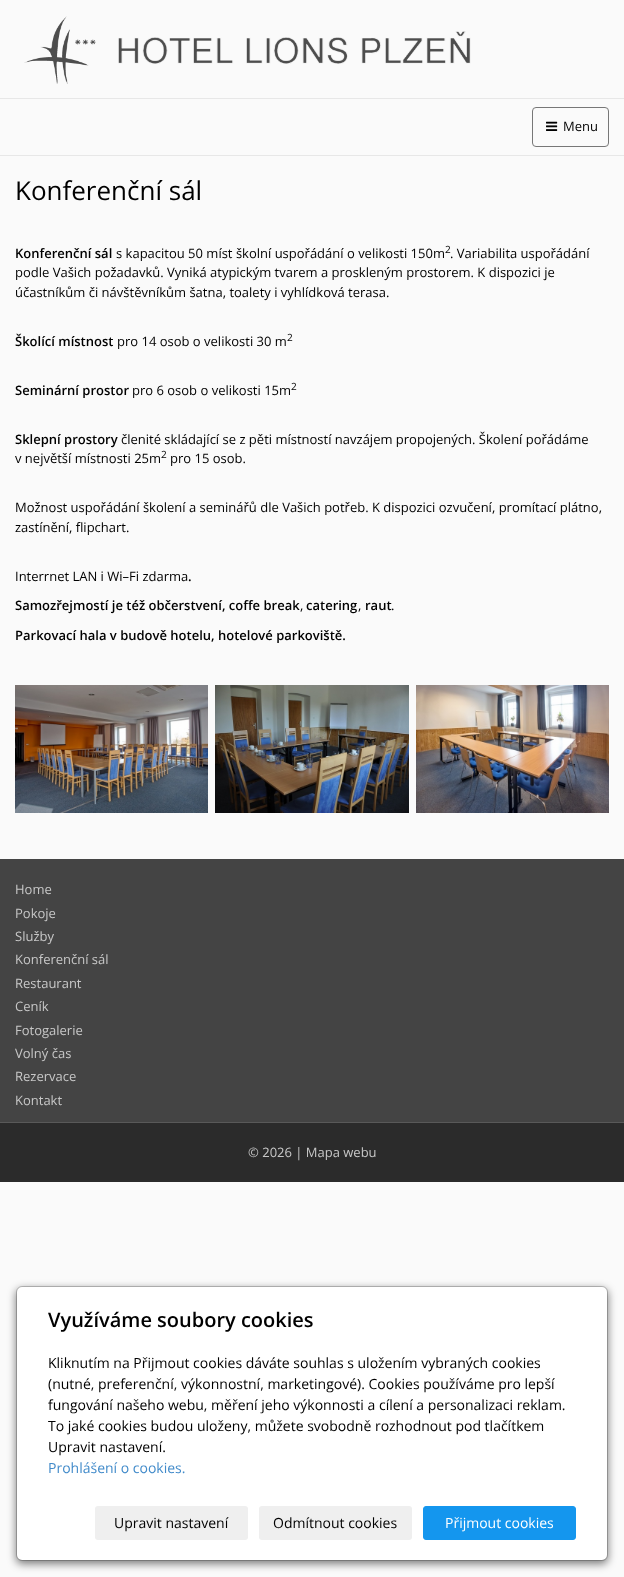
(async () => {
const canvas = document.querySelector("canvas")
canvas.width = 624
canvas.height = 1577
const c = canvas.getContext("2d")
c.miterLimit = 4
c.fontKerning = "normal"
function T(s,x,y){c.fillText(s,x,y)}
function R(x,y,w,h){c.fillRect(x,y,w,h)}
function Q(x,y,w,h,r){c.beginPath();c.roundRect(x,y,w,h,r);c.fill()}
async function I(src,x,y,w,h){const img=new Image();img.src=src;await img.decode();c.drawImage(img,x,y,w,h)}
c.fillStyle="#fafafa"
R(0,0,624,1577)
await I("1.png",24,16,447,68)
c.fillStyle="#e7e7e7"
R(0,98,624,1)
R(0,155,624,1)
c.beginPath()
c.roundRect(532.5,107.5,76,39,3.5)
c.strokeStyle="#777"
c.stroke()
await I("2.png",546,121,12,10)
c.font="13px Open Sans"
c.fillStyle="#000"
T("Menu",563,131)
c.font="26px Open Sans"
T("Konferenční sál",15,200)
c.font="600 13px Open Sans"
T("Konferenční sál",15,258)
c.font="13px Open Sans"
T("s kapacitou 50 míst školní uspořádání o velikosti 150m",116,258)
c.font="10px Open Sans"
T("2",445,253)
c.font="13px Open Sans"
T(". Variabilita uspořádání",450,258)
T("podle Vašich požadavků. Vyniká atypickým tvarem a proskleným prostorem. K dispozici je",15,277)
T("účastníkům či návštěvníkům šatna, toalety i vyhlídková terasa.",15,297)
c.font="600 13px Open Sans"
T("Školící místnost",15,346)
c.font="13px Open Sans"
T("pro 14 osob o velikosti 30 m",117,346)
c.font="10px Open Sans"
T("2",287,341)
c.font="600 13px Open Sans"
T("Seminární prostor",15,395)
c.font="13px Open Sans"
T("pro 6 osob o velikosti 15m",132,395)
c.font="10px Open Sans"
T("2",291,390)
c.font="600 13px Open Sans"
T("Sklepní prostory",15,444)
c.font="13px Open Sans"
T("členité skládající se z pěti místností navzájem propojených. Školení pořádáme",121,444)
T("v největší místnosti 25m",15,463)
c.font="10px Open Sans"
T("2",161,458)
c.font="13px Open Sans"
T("pro 15 osob.",170,463)
T("Možnost uspořádání školení a seminářů dle Vašich potřeb. K dispozici ozvučení, promítací plátno,",15,512)
T("zastínění, flipchart.",15,532)
T("Interrnet LAN i Wi–Fi zdarma",15,581)
c.font="600 13px Open Sans"
T(".",188,581)
T("Samozřejmostí je též občerstvení, coffe break",15,610)
c.font="13px Open Sans"
T(",",300,610)
c.font="600 13px Open Sans"
T("catering",306,610)
c.font="13px Open Sans"
T(",",358,610)
c.font="600 13px Open Sans"
T("raut",365,610)
c.font="13px Open Sans"
T(".",391,610)
c.font="600 13px Open Sans"
T("Parkovací hala v budově hotelu, hotelové parkoviště.",15,640)
await I("3.png",15,685,193,128)
await I("4.png",215,685,194,128)
await I("5.png",416,685,193,128)
c.fillStyle="#444"
R(0,859,624,263)
c.font="13px Open Sans"
c.fillStyle="#c7c7c7"
T("Home",15,894)
T("Pokoje",15,918)
T("Služby",15,941)
T("Konferenční sál",15,964)
T("Restaurant",15,988)
T("Ceník",15,1011)
T("Fotogalerie",15,1035)
T("Volný čas",15,1058)
T("Rezervace",15,1081)
T("Kontakt",15,1105)
c.fillStyle="#2b2b2b"
R(0,1123,624,59)
c.fillStyle="#595959"
R(0,1122,624,1)
c.fillStyle="#c7c7c7"
T("© 2026 | Mapa webu",248,1157)
c.fillStyle="#00000080"
c.filter="blur(4.5px)"
c.beginPath()
c.roundRect(16,1289,592,275,6)
c.fill()
c.filter="none"
c.fillStyle="#fff"
Q(17,1287,590,273,5)
c.beginPath()
c.roundRect(16.5,1286.5,591,274,5.5)
c.strokeStyle="#00000033"
c.stroke()
c.font="600 20px Open Sans"
c.fillStyle="#000"
T("Využíváme soubory cookies",48,1327)
c.font="14px Open Sans"
T("Kliknutím na Přijmout cookies dáváte souhlas s uložením vybraných cookies",48,1368)
T("(nutné, preferenční, výkonnostní, marketingové). Cookies používáme pro lepší",48,1389)
T("fungování našeho webu, měření jeho výkonnosti a cílení a personalizaci reklam.",48,1410)
T("To jaké cookies budou uloženy, můžete svobodně rozhodnout pod tlačítkem",48,1431)
T("Upravit nastavení.",48,1452)
c.fillStyle="#428bca"
T("Prohlášení o cookies.",48,1473)
c.fillStyle="#efefef"
Q(95,1506,153,34,3)
c.fillStyle="#000"
T("Upravit nastavení",114,1528)
c.fillStyle="#efefef"
Q(259,1506,153,34,3)
c.fillStyle="#000"
T("Odmítnout cookies",273,1528)
c.fillStyle="#1496ee"
c.beginPath()
c.roundRect(423.5,1506.5,152,33,2.5)
c.fill()
c.strokeStyle="#1496ee"
c.stroke()
c.fillStyle="#fff"
T("Přijmout cookies",445,1528)
})()
